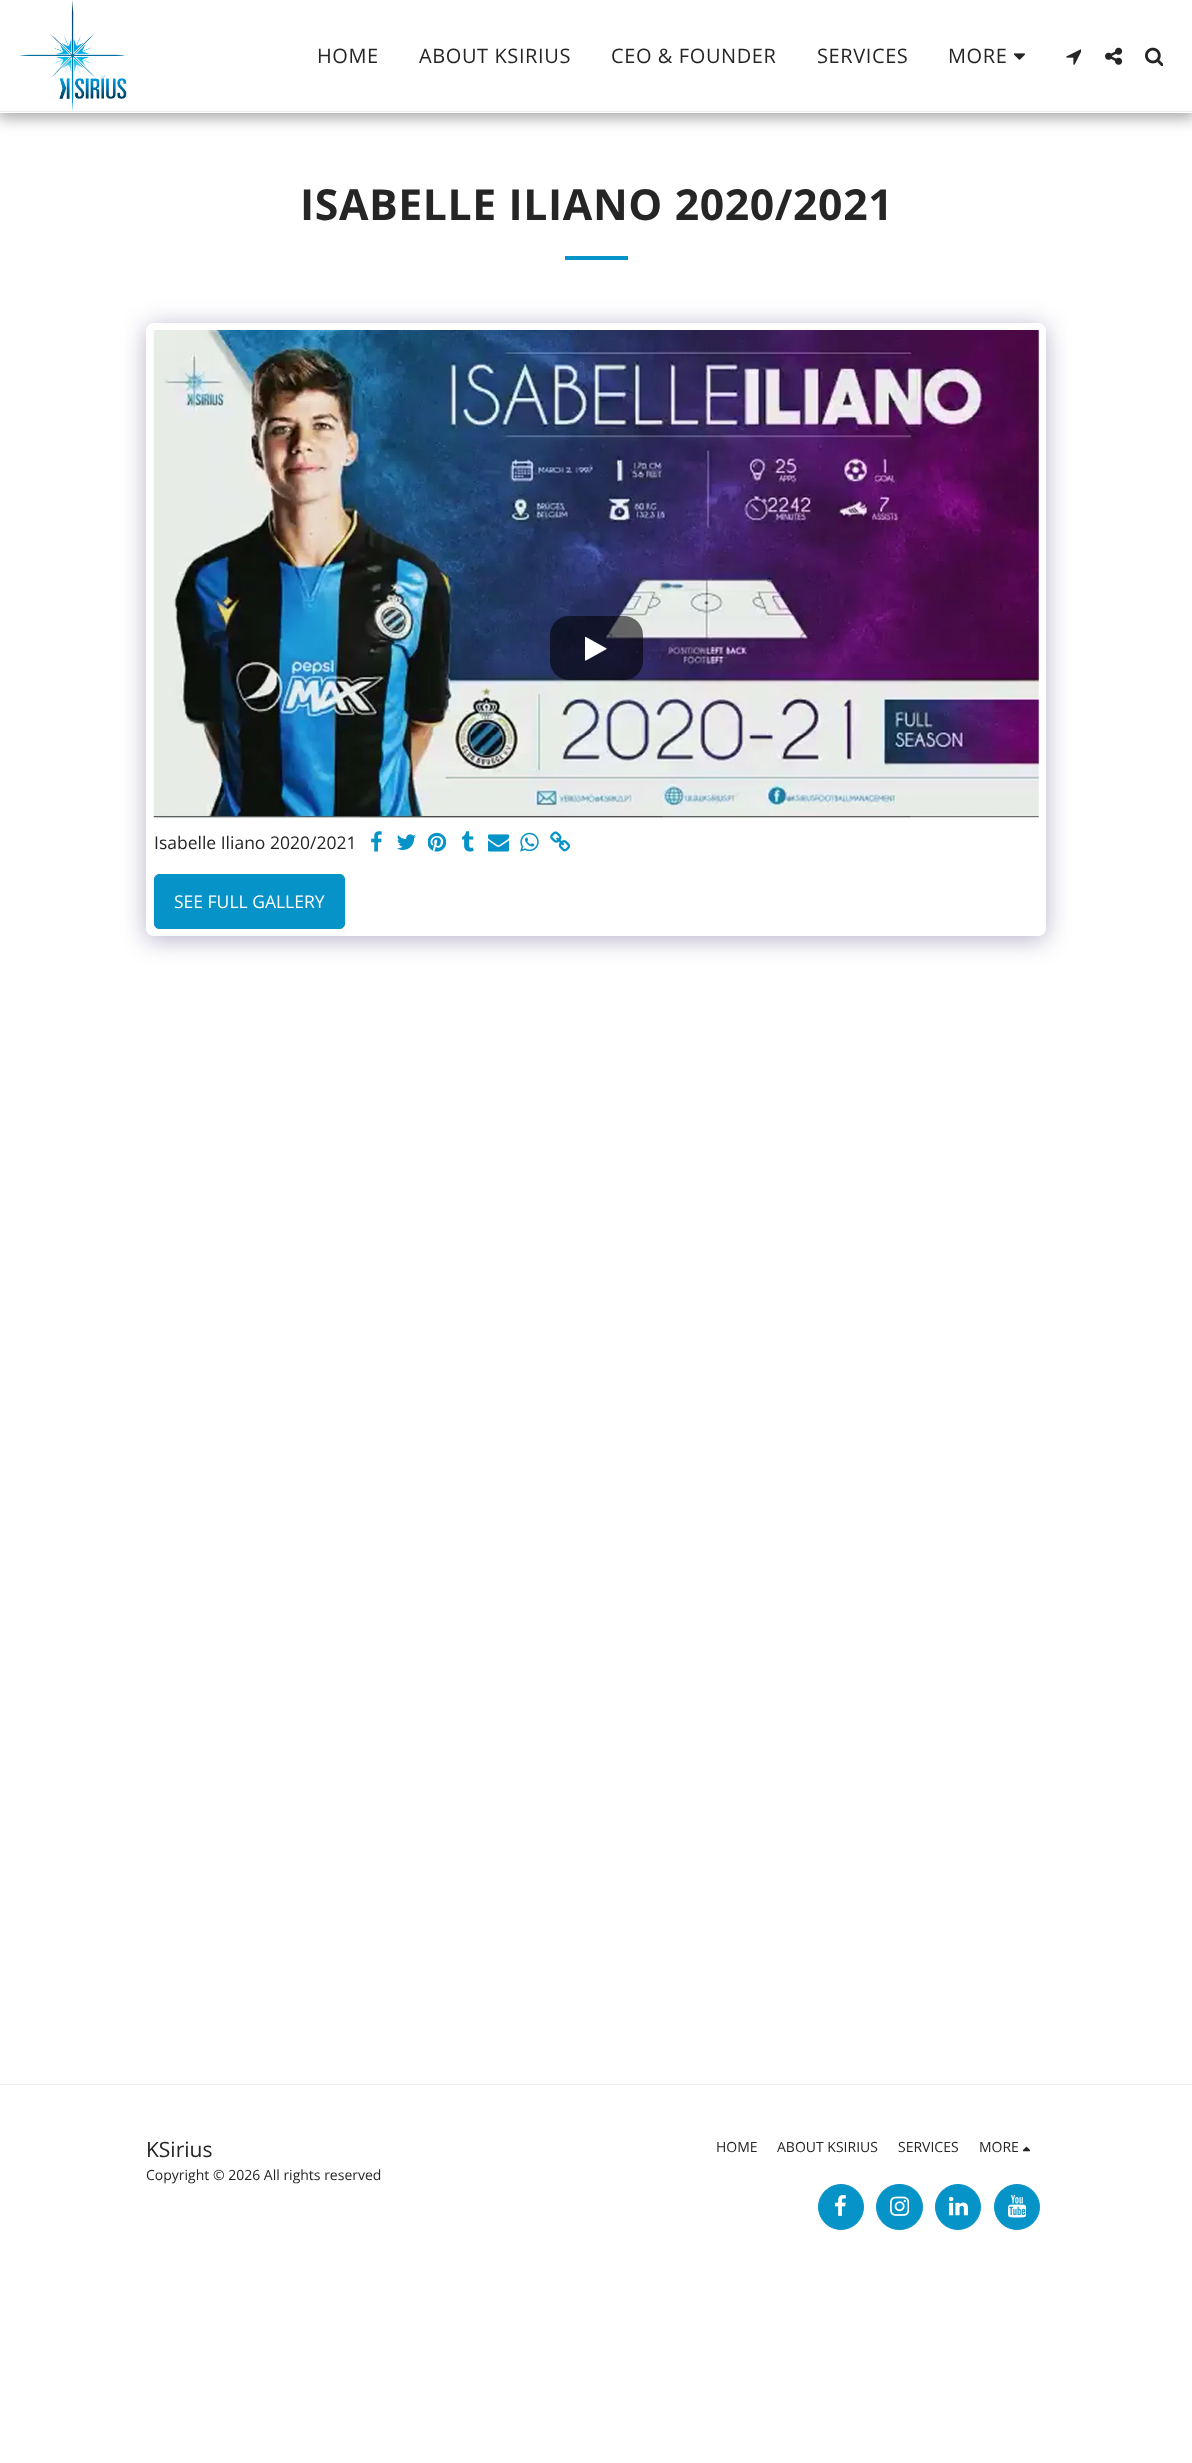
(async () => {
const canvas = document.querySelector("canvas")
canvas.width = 1192
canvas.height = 2463
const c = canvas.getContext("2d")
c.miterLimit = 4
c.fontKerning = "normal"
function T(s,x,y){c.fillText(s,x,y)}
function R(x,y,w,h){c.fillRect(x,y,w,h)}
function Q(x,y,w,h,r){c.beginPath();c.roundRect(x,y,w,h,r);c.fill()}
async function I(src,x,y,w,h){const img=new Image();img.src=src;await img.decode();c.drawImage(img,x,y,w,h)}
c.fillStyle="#fff"
R(0,0,1192,2463)
c.fillStyle="#00000059"
c.filter="blur(7.5px)"
c.beginPath()
c.rect(-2,0,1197,118)
c.fill()
c.filter="none"
c.fillStyle="#fff"
R(0,0,1192,113)
c.fillStyle="#ebebeb"
R(0,111,1192,1)
await I("1.png",19,0,108,111)
c.letterSpacing="0.6px"
c.font="20px Open Sans"
c.fillStyle="#252525"
T("HOME",317,63)
T("ABOUT KSIRIUS",419,63)
T("CEO & FOUNDER",611,63)
T("SERVICES",817,63)
T("MORE",948,63)
await I("2.png",1014,53,11,7)
await I("3.png",1066,49,15,16)
await I("4.png",1105,47,18,18)
await I("5.png",1145,47,18,19)
c.font="bold 42.75px Open Sans"
T("ISABELLE ILIANO 2020/2021",300,220)
c.fillStyle="#0693c8"
R(565,256,63,4)
c.fillStyle="#4d3f7a66"
c.filter="blur(12.5px)"
c.beginPath()
c.roundRect(146,326,900,614,8)
c.fill()
c.filter="none"
c.fillStyle="#fff"
Q(146,323,900,613,8)
await I("6.png",153,330,886,488)
c.fillStyle="#00000091"
Q(550,616,93,64,19)
await I("7.png",585,636,22,25)
c.letterSpacing="0px"
c.font="17.5px Open Sans"
c.fillStyle="#252525"
T("Isabelle Iliano 2020/2021",154,849)
await I("8.png",371,831,11,21)
await I("9.png",397,834,19,16)
await I("10.png",428,832,18,20)
await I("11.png",462,831,12,21)
await I("12.png",488,834,21,18)
await I("13.png",520,832,19,20)
await I("14.png",550,831,20,21)
c.fillStyle="#0693c8"
c.beginPath()
c.roundRect(154.5,874.5,190,54,4.5)
c.fill()
c.strokeStyle="#0693c8"
c.stroke()
c.fillStyle="#fff"
T("SEE FULL GALLERY",174,908)
c.fillStyle="#ebebeb"
R(0,2084,1192,1)
c.font="21px Open Sans"
c.fillStyle="#252525"
T("KSirius",146,2157)
c.font="14px Open Sans"
T("Copyright © 2026 All rights reserved",146,2180)
T("HOME",716,2152)
T("ABOUT KSIRIUS",777,2152)
T("SERVICES",898,2152)
T("MORE",979,2152)
await I("15.png",1023,2146,7,6)
c.fillStyle="#0693c8"
c.beginPath()
c.arc(841,2207,22.5,0,7)
c.fill()
c.stroke()
await I("16.png",834,2195,12,21)
c.beginPath()
c.roundRect(876.5,2184.5,46,45,22.5)
c.fill()
c.stroke()
await I("17.png",890,2196,19,20)
c.beginPath()
c.arc(958,2207,22.5,0,7)
c.fill()
c.stroke()
await I("18.png",949,2196,19,20)
c.beginPath()
c.arc(1017,2207,22.5,0,7)
c.fill()
c.stroke()
await I("19.png",1008,2195,18,23)
})()
